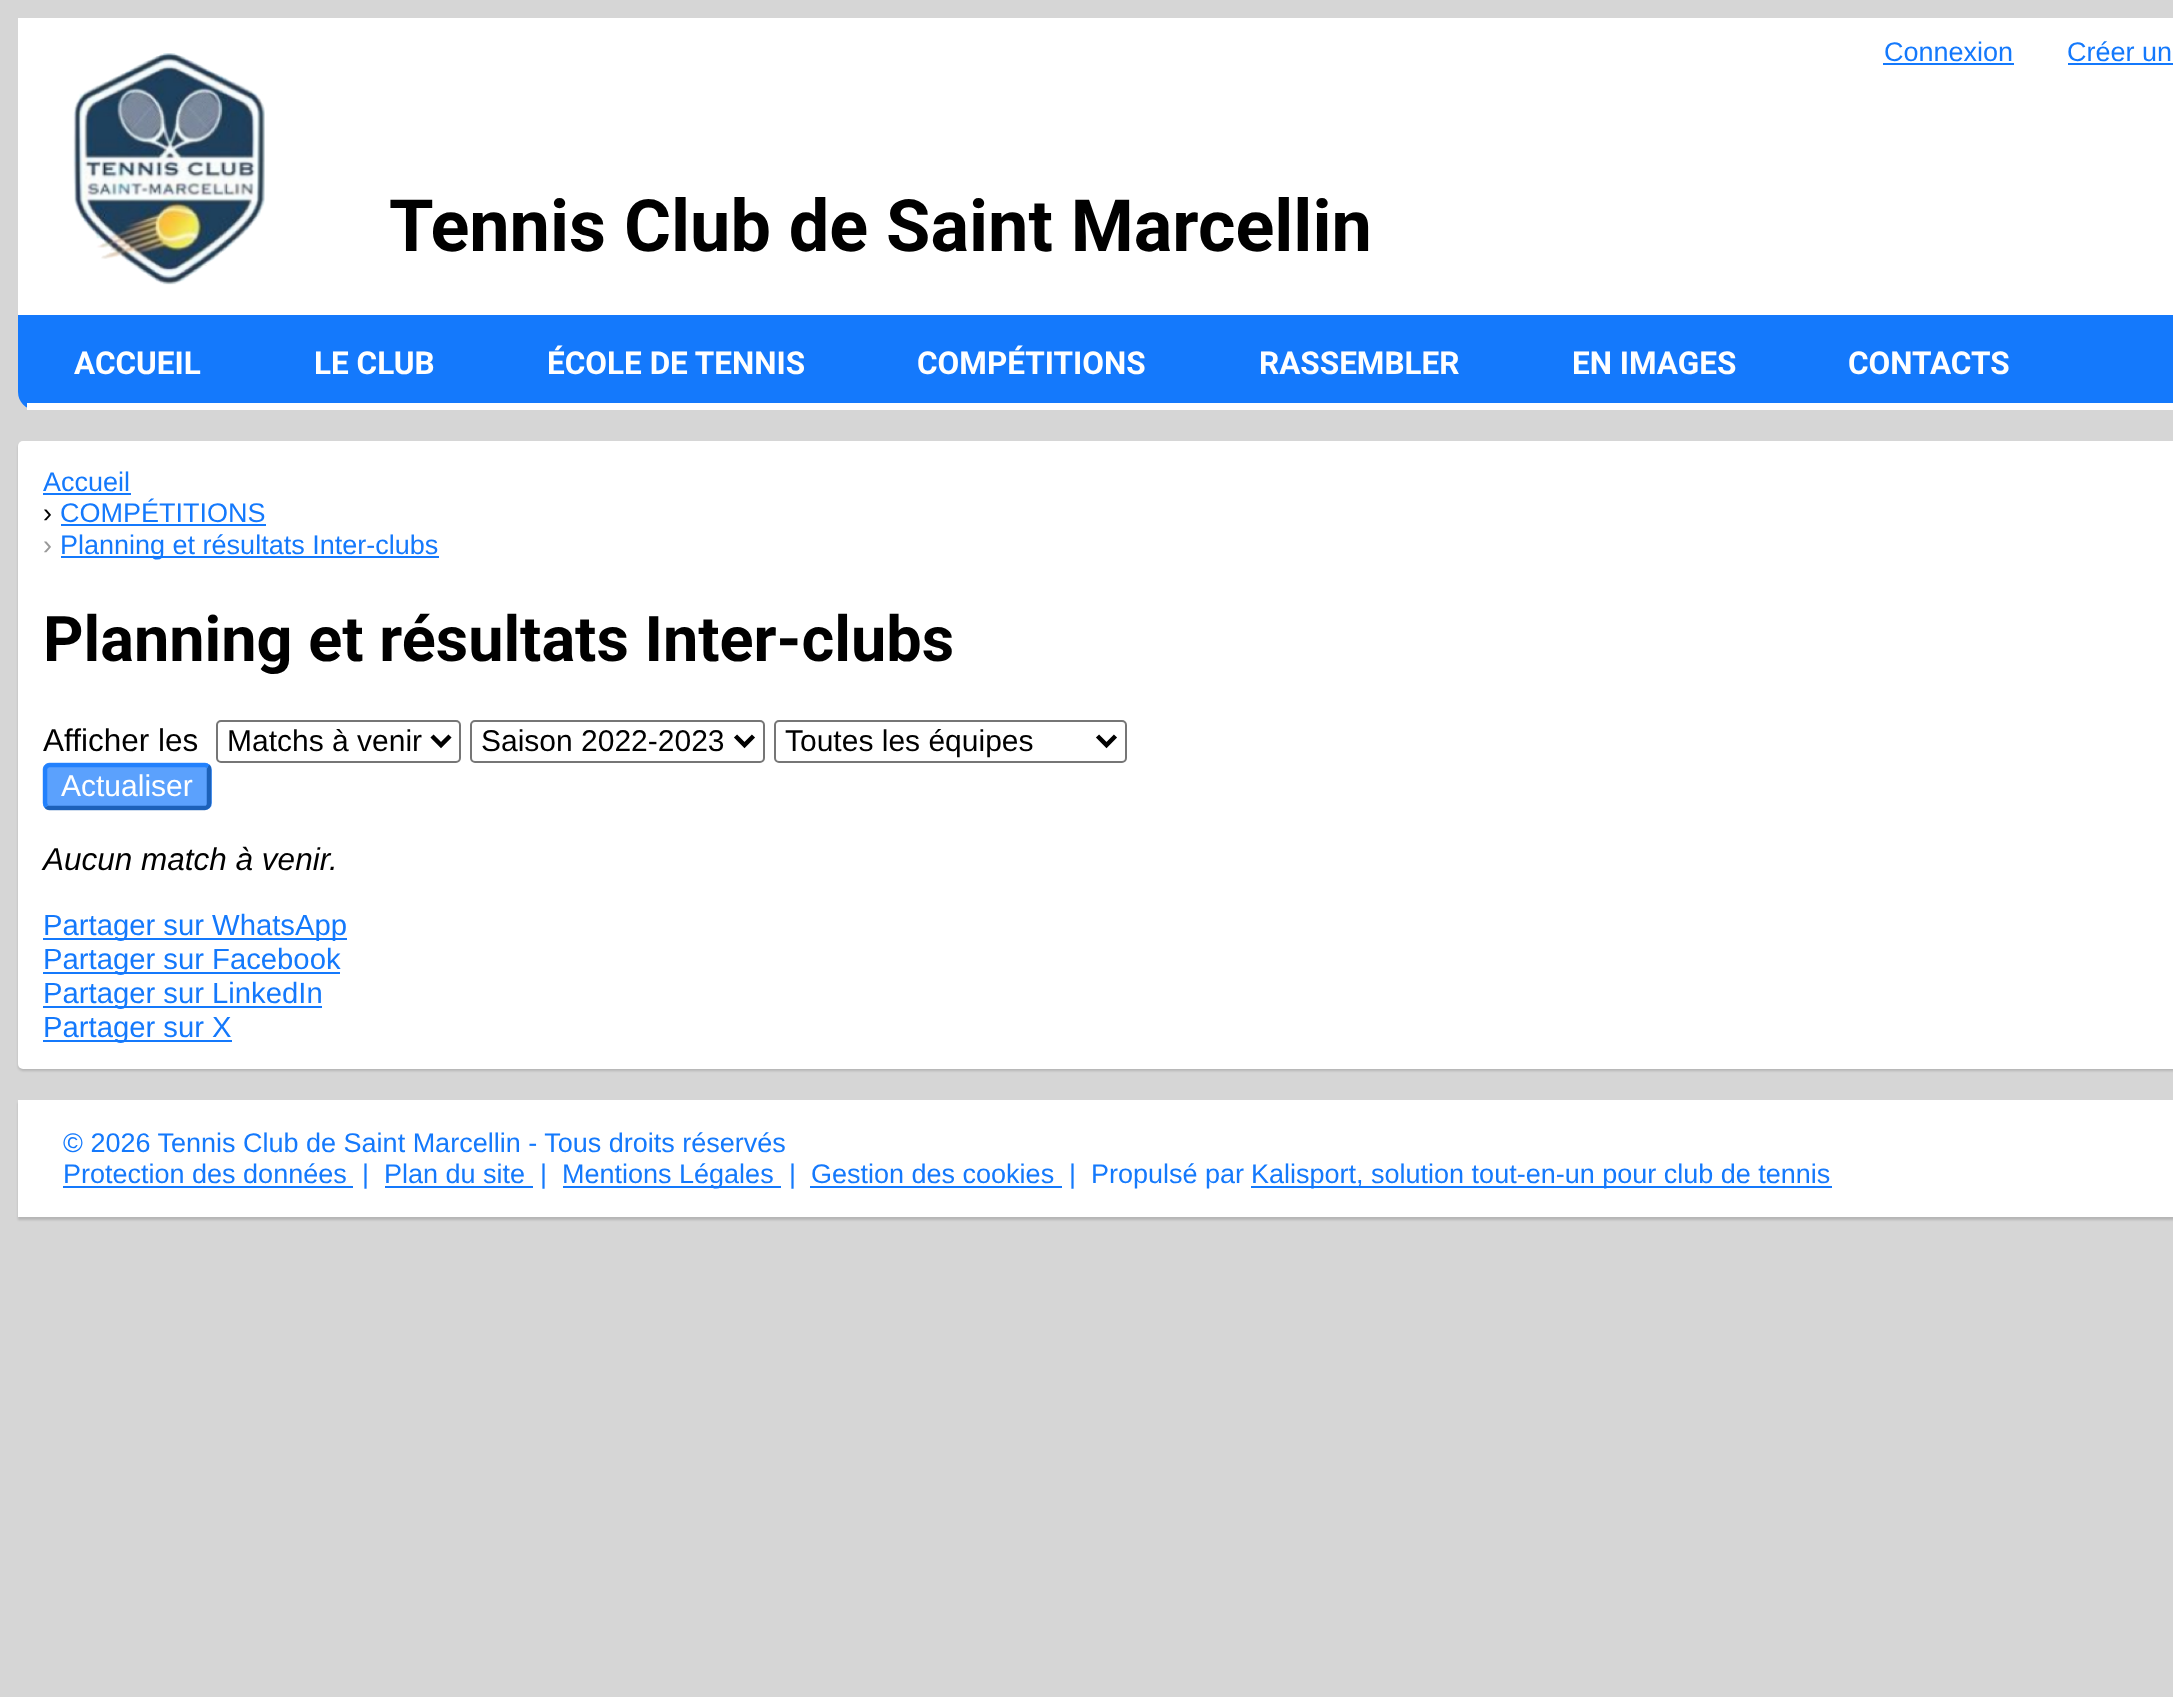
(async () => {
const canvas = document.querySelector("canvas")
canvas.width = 2173
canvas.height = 1697
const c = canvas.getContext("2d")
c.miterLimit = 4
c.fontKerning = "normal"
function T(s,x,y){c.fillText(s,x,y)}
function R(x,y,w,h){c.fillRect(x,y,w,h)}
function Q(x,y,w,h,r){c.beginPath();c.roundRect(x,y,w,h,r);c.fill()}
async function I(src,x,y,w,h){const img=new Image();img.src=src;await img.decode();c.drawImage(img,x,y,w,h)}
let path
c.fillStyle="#d6d6d6"
R(0,0,2173,1697)
c.fillStyle="#fff"
R(18,18,2155,297)
await I("1.png",73,53,192,232)
c.font="bold 72px Roboto"
c.fillStyle="#000"
T("Tennis Club de Saint Marcellin",389,251)
c.font="27px Liberation Sans"
c.fillStyle="#1479fc"
T("Connexion",1884,61)
R(1883,63,131,2)
T("Créer un",2067,61)
R(2068,63,105,2)
path = new Path2D("M18 315h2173v77c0 10-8 18-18 18h-2137c-10 0-18-8-18-18z")
c.fill(path)
c.fillStyle="#fff"
R(27,403,2146,7)
c.font="bold 31.5px Roboto"
T("ACCUEIL",74,374)
T("LE CLUB",314,374)
T("ÉCOLE DE TENNIS",547,374)
T("COMPÉTITIONS",917,374)
T("RASSEMBLER",1259,374)
T("EN IMAGES",1572,374)
T("CONTACTS",1848,374)
c.fillStyle="#00000026"
c.filter="blur(1px)"
c.beginPath()
c.roundRect(18,443,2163,628,5)
c.fill()
c.filter="none"
c.fillStyle="#fff"
Q(18,441,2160,628,5)
c.font="27px Liberation Sans"
c.fillStyle="#1479fc"
T("Accueil",43,491)
R(43,493,88,2)
c.fillStyle="#000"
T("›",43,522)
c.fillStyle="#1479fc"
T("COMPÉTITIONS",60,522)
R(61,524,205,2)
c.fillStyle="#999"
T("›",43,554)
c.fillStyle="#1479fc"
R(61,556,378,2)
T("Planning et résultats Inter-clubs",60,554)
c.font="bold 63px Roboto"
c.fillStyle="#000"
T("Planning et résultats Inter-clubs",43,661)
c.font="31.5px Liberation Sans"
T("Afficher les",43,751)
c.beginPath()
c.roundRect(217,721,243,41,4)
c.strokeStyle="#767676"
c.lineWidth=2
c.stroke()
path = new Path2D("M432 736l9 9l9-9")
c.strokeStyle="#000"
c.lineWidth=4.5
c.stroke(path)
c.font="30px Liberation Sans"
T("Matchs à venir",227,751)
c.beginPath()
c.roundRect(471,721,293,41,4)
c.strokeStyle="#767676"
c.lineWidth=2
c.stroke()
path = new Path2D("M735.5 736l9 9l9-9")
c.strokeStyle="#000"
c.lineWidth=4.5
c.stroke(path)
T("Saison 2022-2023",481,751)
c.beginPath()
c.roundRect(775,721,351,41,4)
c.strokeStyle="#767676"
c.lineWidth=2
c.stroke()
path = new Path2D("M1097.5 736l9 9l9-9")
c.strokeStyle="#000"
c.lineWidth=4.5
c.stroke(path)
T("Toutes les équipes",785,751)
c.fillStyle="#5ba1fd"
Q(43,763,169,47,7)
path = new Path2D("M208 766.5c1 .5 1 2 1 3v33.5c0 1.5 0 2.5-1 3.5c-1 1-2 1.5-3 1.5h-155.5c-1 0-2.5-.5-3-1.5")
c.strokeStyle="#0d51a8cc"
c.stroke(path)
path = new Path2D("M46.5 806.5c-1-1-1.5-2-1.5-3.5v-33.5c0-1 .5-2.5 1.5-3c.5-1 2-1.5 3-1.5h155.5c1 0 2 .5 3 1.5")
c.strokeStyle="#1479fccc"
c.stroke(path)
c.fillStyle="#fff"
T("Actualiser",61,796)
c.font="italic 31.5px Liberation Sans"
c.fillStyle="#000"
T("Aucun match à venir.",43,870)
c.fillStyle="#1479fc"
R(43,938,304,2)
c.font="29.25px Liberation Sans"
T("Partager sur WhatsApp",43,935)
R(43,972,297,2)
T("Partager sur Facebook",43,969)
R(43,1006,279,2)
T("Partager sur LinkedIn",43,1003)
R(43,1040,189,2)
T("Partager sur X",43,1037)
c.fillStyle="#00000026"
c.filter="blur(1px)"
c.beginPath()
c.rect(18,1103,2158,117)
c.fill()
c.filter="none"
c.fillStyle="#fff"
R(18,1100,2155,117)
c.font="27px Liberation Sans"
c.fillStyle="#1479fc"
T("© 2026 Tennis Club de Saint Marcellin - Tous droits réservés",63,1152)
T("Protection des données",63,1183)
R(63,1186,290,2)
T("|",362,1183)
T("Plan du site",384,1183)
R(385,1186,148,2)
T("|",540,1183)
R(563,1186,218,2)
T("Mentions Légales",562,1183)
T("|",789,1183)
T("Gestion des cookies",811,1183)
R(810,1186,252,2)
T("|",1069,1183)
T("Propulsé par",1091,1183)
R(1251,1186,581,2)
T("Kalisport, solution tout-en-un pour club de tennis",1251,1183)
})()
